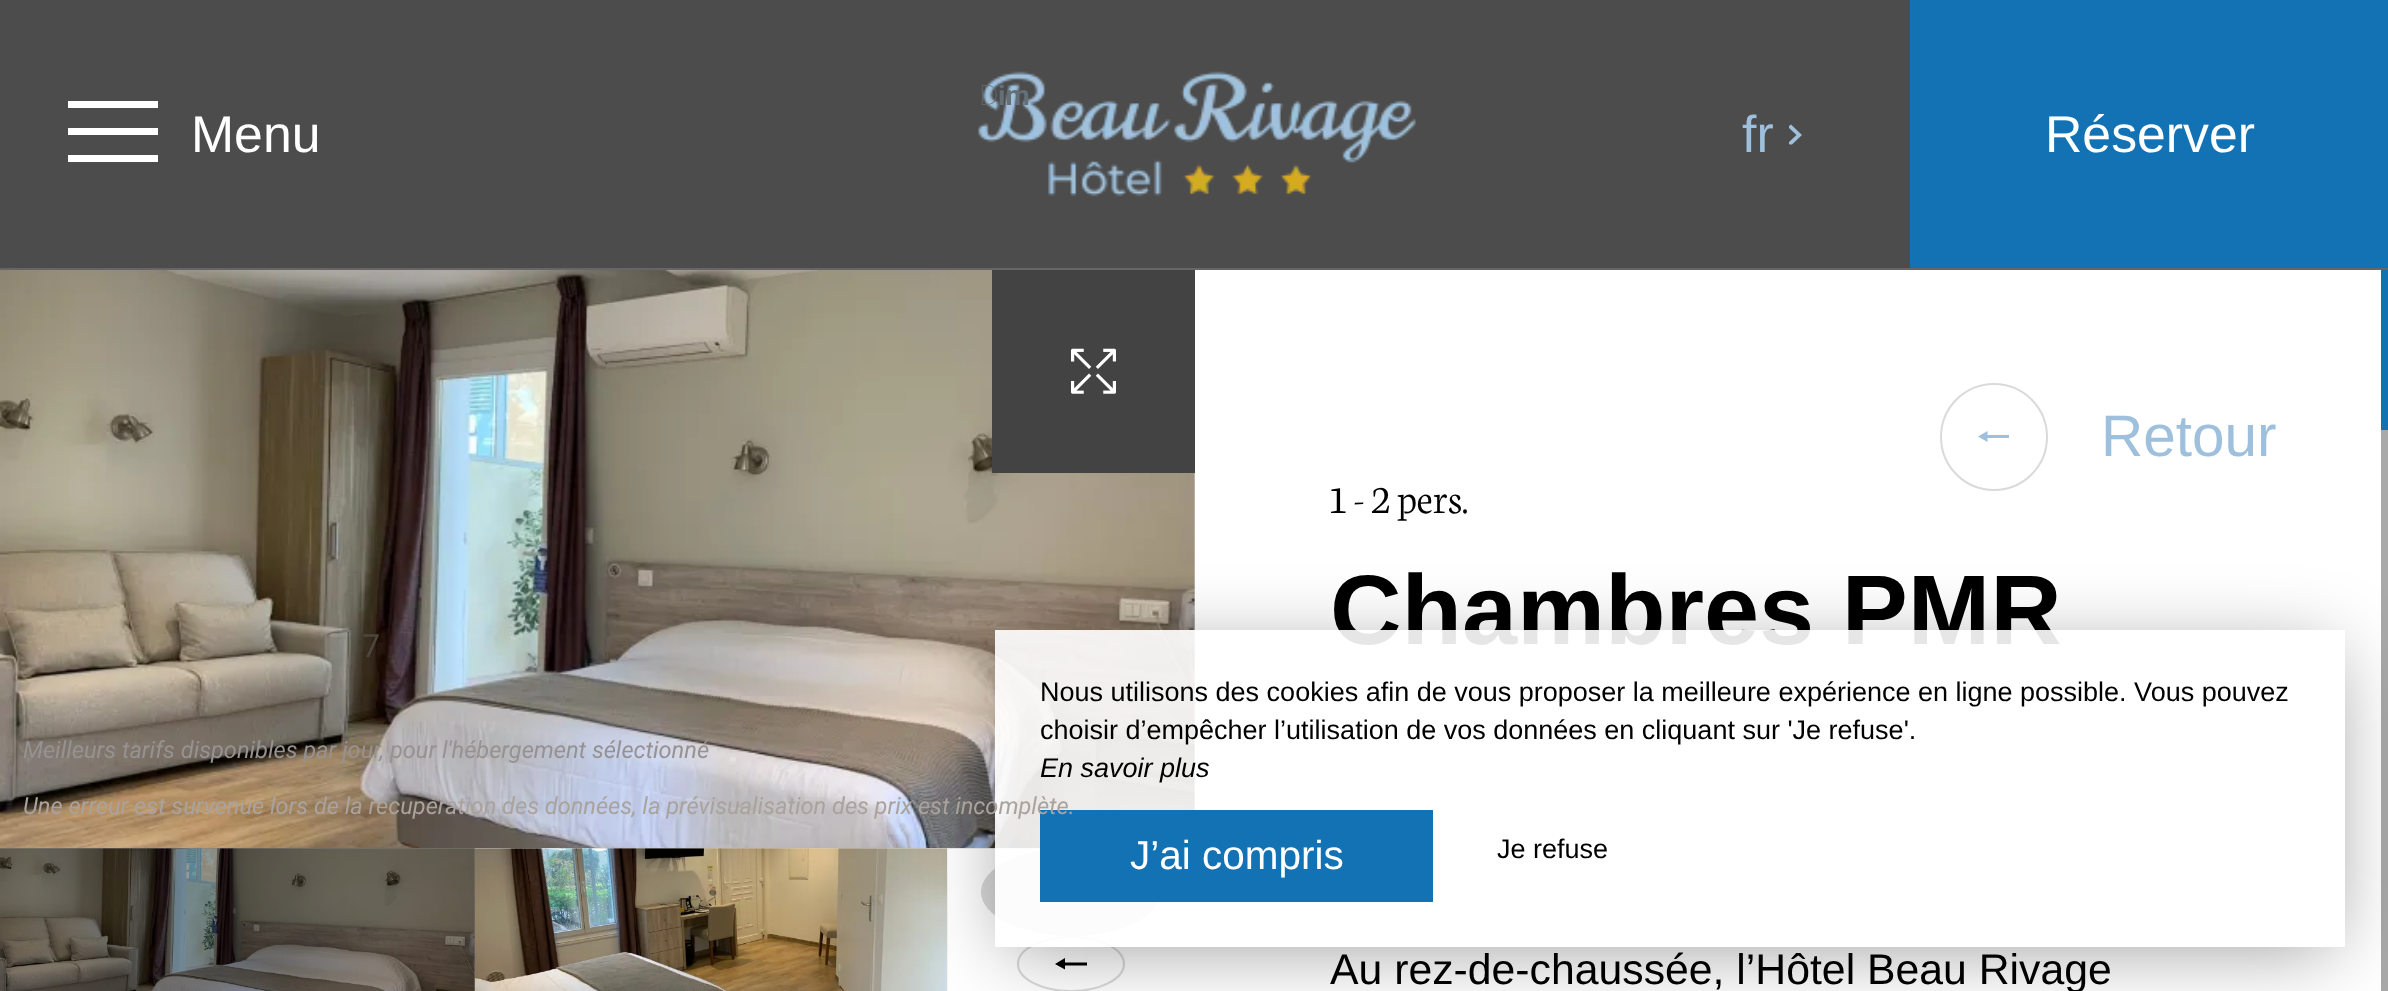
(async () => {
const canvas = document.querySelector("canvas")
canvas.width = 2388
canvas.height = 991
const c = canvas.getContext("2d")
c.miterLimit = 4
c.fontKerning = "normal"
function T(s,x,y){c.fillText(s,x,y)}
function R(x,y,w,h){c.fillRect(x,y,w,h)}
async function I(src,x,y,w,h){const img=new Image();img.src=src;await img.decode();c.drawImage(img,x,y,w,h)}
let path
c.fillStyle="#fff"
R(0,0,2388,991)
c.fillStyle="#4c4c4c"
R(0,0,1910,268)
await I("1.png",978,71,438,126)
c.font="100 28px Noto Sans"
c.fillStyle="#656f77"
T("D",979,105)
c.font="bold 28px Roboto"
T("im",998,105)
await I("3.png",0,473,1195,376)
await I("2.png",0,270,1195,579)
c.font="32px Roboto"
c.fillStyle="#4d463a"
T("7",362,657)
c.save()
c.beginPath()
c.rect(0,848,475,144)
c.clip()
c.fillStyle="#fff"
c.filter="blur(56px)"
c.beginPath()
c.rect(0,848,475,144)
c.fill()
c.filter="none"
c.restore()
await I("5.png",0,848,475,143)
await I("6.png",0,848,475,143)
c.save()
c.beginPath()
c.rect(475,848,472,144)
c.clip()
c.fillStyle="#fff"
c.filter="blur(56px)"
c.beginPath()
c.rect(475,848,472,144)
c.fill()
c.filter="none"
c.restore()
c.font="italic 23.6px Roboto"
c.fillStyle="#969291"
T("Meilleurs tarifs disponibles par jour, pour l'hébergement sélectionné",23,758)
await I("7.png",474,848,474,143)
await I("8.png",474,848,474,143)
c.fillStyle="#c2c2c299"
c.beginPath()
c.ellipse(1071,892,90,44,0,0,7)
c.fill()
path = new Path2D("M1071 937c29 0 53 12 53 27c0 15-24 27-53 27c-29 0-53-12-53-27c0-15 24-27 53-27z")
c.strokeStyle="#dadada"
c.lineWidth=2.2
c.stroke(path)
c.save()
c.beginPath()
c.rect(1055,938,32,52)
c.clip()
c.fillStyle="#000"
path = new Path2D("M1055 964l10-6v4.5h22.5v3h-22.5v4z")
c.fill(path)
c.restore()
c.fillStyle="#a9a9a9"
R(2381,430,7,561)
c.save()
path = new Path2D("M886 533h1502v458h-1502zm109 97h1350v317h-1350z")
c.clip(path,"evenodd")
c.fillStyle="#00000066"
c.filter="blur(39.5px)"
c.beginPath()
c.rect(1006,653,1327,294)
c.fill()
c.filter="none"
c.restore()
c.font="bold 99px Liberation Sans"
c.fillStyle="#000"
T("Chambres PMR",1330,644)
c.fillStyle="#ffffffe6"
R(995,630,1350,317)
c.fillStyle="#1272b3"
R(1040,810,393,92)
c.font="italic 23.6px Roboto"
c.fillStyle="#aaa29d"
T("Une erreur est survenue lors de la récupération des données, la prévisualisation des prix est incomplète.",23,814)
c.fillStyle="#666"
R(0,268,2388,2)
c.fillStyle="#fff"
R(68,101,90,7)
R(68,128,90,7)
R(68,155,90,7)
c.font="51.75px Liberation Sans"
T("Menu",191,152)
c.fillStyle="#9fc0dc"
T("fr",1742,152)
path = new Path2D("M1802 135l-10 9.5h-2l-1-.5v-2l7.5-7l-7.5-7v-2l2-1.5z")
c.fill(path)
c.fillStyle="#1272b3"
R(1910,0,478,268)
c.fillStyle="#fff"
T("Réserver",2045,152)
c.fillStyle="#434343"
R(992,270,203,203)
await I("4.png",1071,348,45,46)
c.fillStyle="#00000066"
R(0,848,475,143)
c.beginPath()
c.arc(1994,437,53,0,7)
c.lineWidth=2
c.stroke()
c.save()
c.beginPath()
c.rect(1978,385,31,103)
c.clip()
c.fillStyle="#9fc0dc"
path = new Path2D("M1978 436.5l9.5-5.5v4h22.5v3h-22.5v4z")
c.fill(path)
c.restore()
c.font="58.5px Liberation Sans"
c.fillStyle="#9fc0dc"
T("Retour",2101,456)
c.font="300 42.75px Neuton"
c.fillStyle="#000"
T("1 - 2 pers.",1330,513)
c.font="42.75px Liberation Sans"
T("Au rez-de-chaussée, l’Hôtel Beau Rivage",1330,984)
c.fillStyle="#1272b3"
R(2381,270,7,160)
c.font="27px Liberation Sans"
c.fillStyle="#000"
T("Nous utilisons des cookies afin de vous proposer la meilleure expérience en ligne possible. Vous pouvez",1040,701)
T("choisir d’empêcher l’utilisation de vos données en cliquant sur 'Je refuse'.",1040,739)
c.font="italic 27px Liberation Sans"
T("En savoir plus",1040,777)
c.font="40.5px Liberation Sans"
c.fillStyle="#fff"
T("J’ai compris",1130,869)
c.font="27px Liberation Sans"
c.fillStyle="#000"
T("Je refuse",1497,858)
})()
